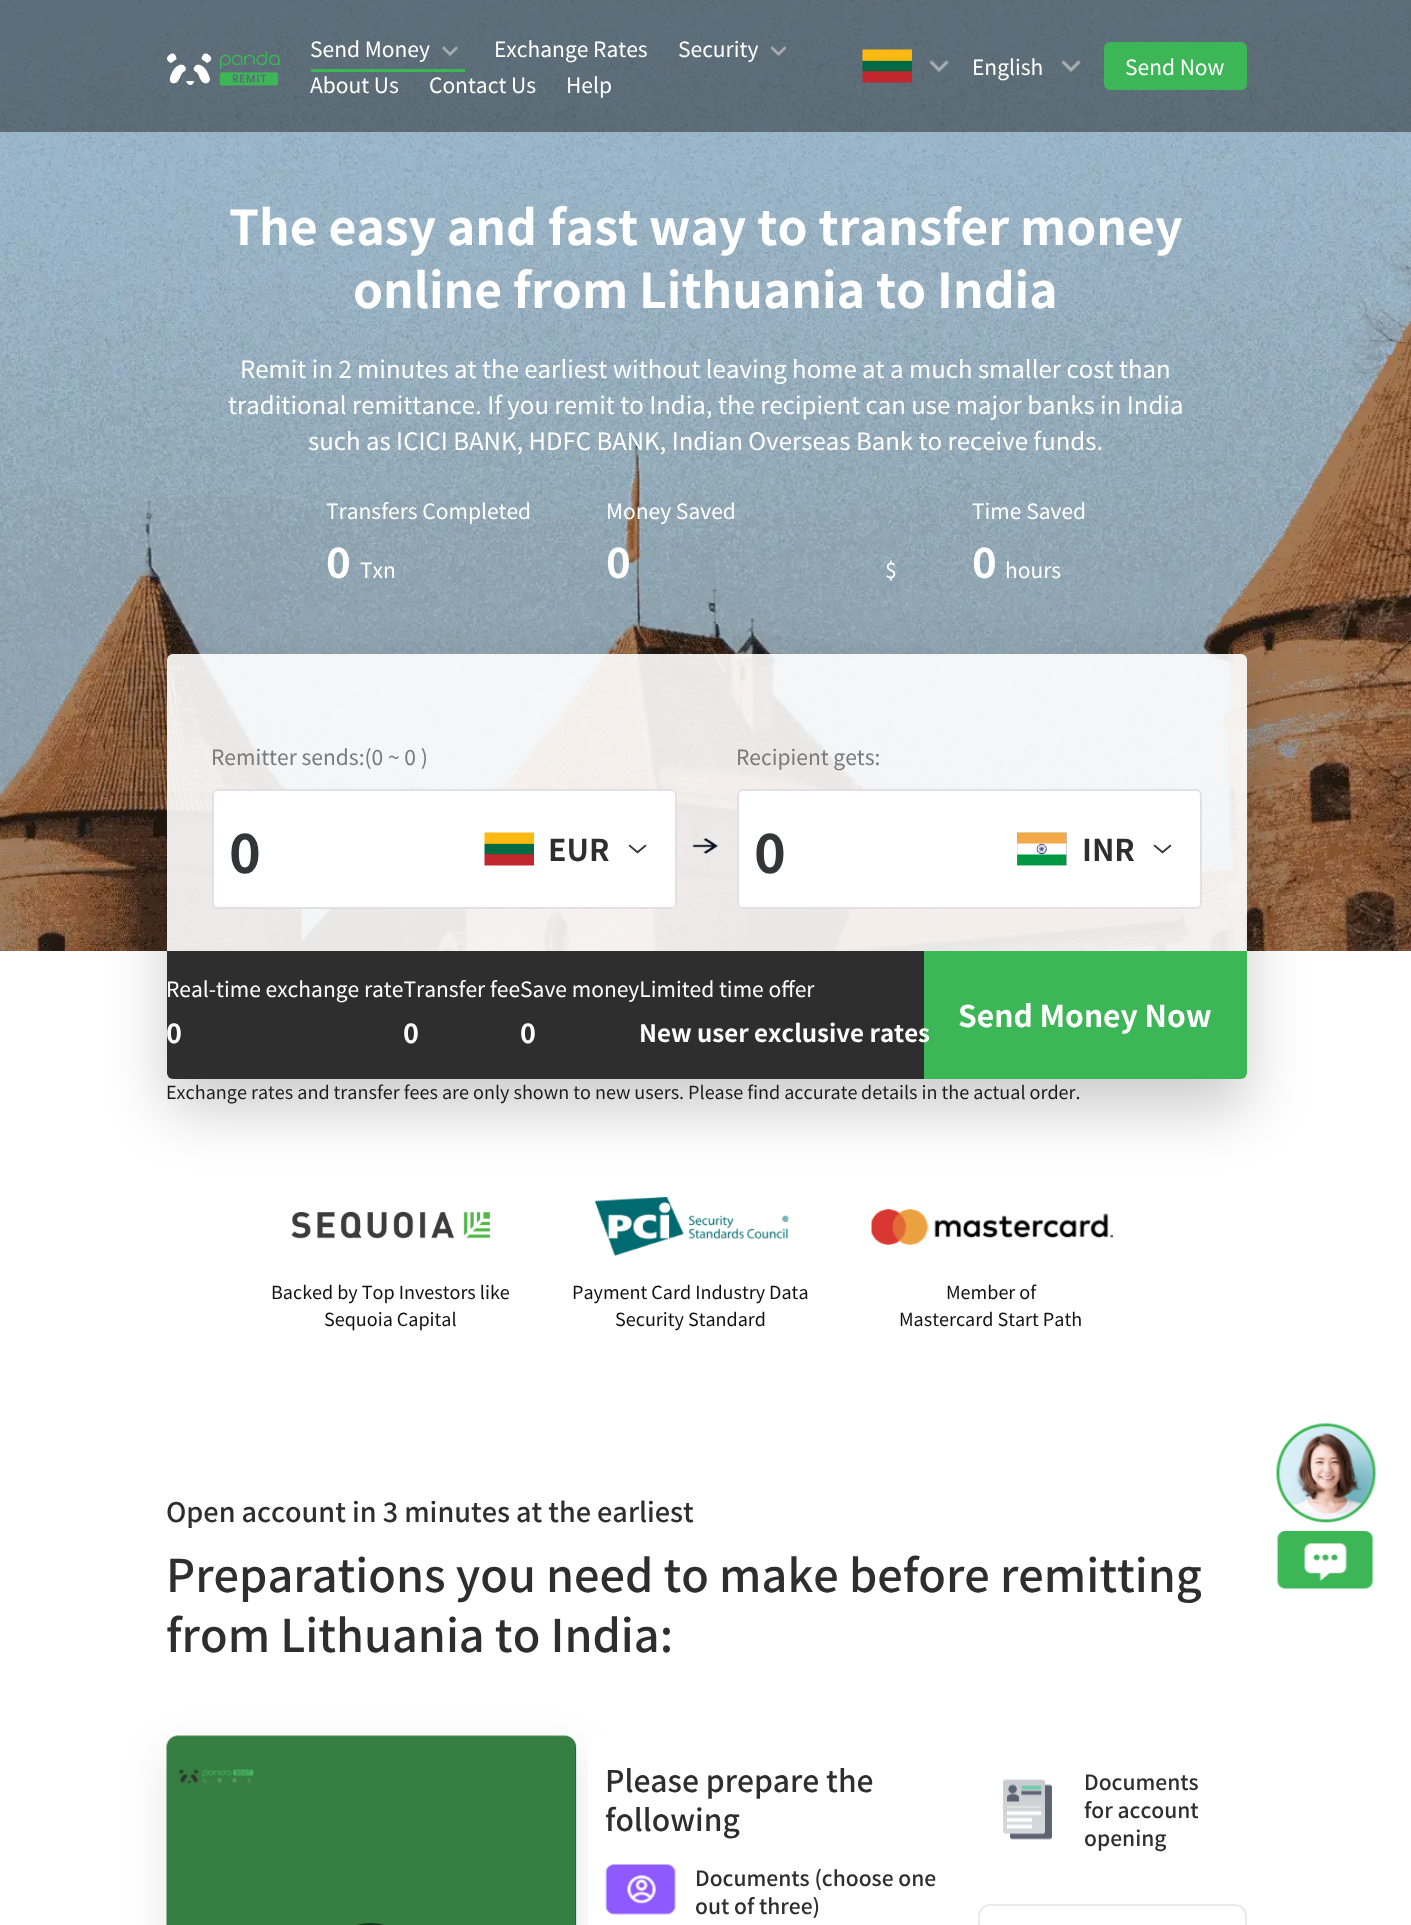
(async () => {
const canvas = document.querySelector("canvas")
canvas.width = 1411
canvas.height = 1925
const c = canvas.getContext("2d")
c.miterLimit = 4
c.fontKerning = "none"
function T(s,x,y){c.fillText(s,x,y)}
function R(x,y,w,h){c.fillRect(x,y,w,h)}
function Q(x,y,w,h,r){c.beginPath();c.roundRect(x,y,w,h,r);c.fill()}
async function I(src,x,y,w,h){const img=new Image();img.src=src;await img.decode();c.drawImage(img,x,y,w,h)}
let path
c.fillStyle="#fff"
R(0,0,1411,1925)
await I("1.png",0,0,1411,951)
c.fillStyle="#00000066"
R(0,0,1411,132)
await I("2.png",166,50,114,36)
c.font="21px Noto Sans CJK SC"
c.fillStyle="#fff"
T("Send Money",310,57)
await I("3.png",442,46,17,10)
c.fillStyle="#3db657"
R(311,69,154,3)
c.fillStyle="#fff"
T("Exchange Rates",494,57)
T("Security",678,57)
await I("4.png",770,46,17,10)
T("About Us",310,93)
T("Contact Us",429,93)
T("Help",566,93)
await I("5.png",862,49,50,34)
await I("6.png",929,60,20,12)
T("English",972,75)
await I("7.png",1061,60,20,12)
c.fillStyle="#3db657"
Q(1104,42,143,48,6)
c.fillStyle="#fff"
T("Send Now",1125,75)
c.font="bold 48px Noto Sans CJK SC"
T("The easy and fast way to transfer money",229,245)
T("online from Lithuania to India",353,308)
c.font="24px Noto Sans CJK SC"
T("Remit in 2 minutes at the earliest without leaving home at a much smaller cost than",240,378)
T("traditional remittance. If you remit to India, the recipient can use major banks in India",228,414)
T("such as ICICI BANK, HDFC BANK, Indian Overseas Bank to receive funds.",308,450)
c.font="21px Noto Sans CJK SC"
T("Transfers Completed",326,519)
c.font="bold 42px Noto Sans CJK SC"
T("0",326,578)
c.font="21px Noto Sans CJK SC"
T("Txn",360,578)
T("Money Saved",606,519)
c.font="bold 42px Noto Sans CJK SC"
T("0",606,578)
c.font="21px Noto Sans CJK SC"
T("$",885,578)
T("Time Saved",972,519)
c.font="bold 42px Noto Sans CJK SC"
T("0",972,578)
c.font="21px Noto Sans CJK SC"
T("hours",1005,578)
c.save()
path = new Path2D("M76 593h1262v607h-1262zm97 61h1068c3.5 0 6 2.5 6 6v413c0 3.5-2.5 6-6 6h-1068c-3.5 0-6-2.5-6-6v-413c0-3.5 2.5-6 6-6z")
c.clip(path,"evenodd")
c.fillStyle="#00000033"
c.filter="blur(30px)"
c.beginPath()
c.roundRect(167,684,1080,425,6)
c.fill()
c.filter="none"
c.restore()
c.fillStyle="#ffffffe6"
Q(167,654,1080,425,6)
c.fillStyle="#7a7a7a"
T("Remitter sends:(0 ~ 0 )",211,765)
c.fillStyle="#fff"
Q(212,789,465,120,6)
await I("8.png",484,832,50,34)
await I("9.png",628,844,19,10)
c.beginPath()
c.roundRect(213,790,463,118,5)
c.strokeStyle="#e0e0e6"
c.lineWidth=2
c.stroke()
c.font="bold 54px Noto Sans CJK SC"
c.fillStyle="#333639"
T("0",229,873)
c.font="bold 30px Noto Sans CJK SC"
c.fillStyle="#2e2e2e"
T("EUR",548,861)
await I("10.png",692,838,26,16)
c.font="21px Noto Sans CJK SC"
c.fillStyle="#7a7a7a"
T("Recipient gets:",736,765)
c.fillStyle="#fff"
Q(737,789,465,120,6)
await I("11.png",1017,832,50,34)
await I("9.png",1153,844,19,10)
c.beginPath()
c.roundRect(738,790,463,118,5)
c.stroke()
c.font="bold 54px Noto Sans CJK SC"
c.fillStyle="#333639"
T("0",754,873)
c.font="bold 30px Noto Sans CJK SC"
c.fillStyle="#2e2e2e"
T("INR",1082,861)
c.beginPath()
c.roundRect(167,951,757,128,[0,0,0,6])
c.fill()
c.font="21px Noto Sans CJK SC"
c.fillStyle="#fff"
T("Real-time exchange rateTransfer",166,997)
T("feeSave moneyLimited time offer",490,997)
c.font="bold 27px Noto Sans CJK SC"
T("0",166,1043)
T("0",403,1043)
T("0",520,1043)
c.fillStyle="#3db657"
c.beginPath()
c.roundRect(924,951,323,128,[0,0,6,0])
c.fill()
c.font="bold 24px Noto Sans CJK SC"
c.fillStyle="#fff"
T("New user exclusive rates",639,1042)
c.font="bold 30px Noto Sans CJK SC"
T("Send Money Now",958,1027)
c.font="18px Noto Sans CJK SC"
c.fillStyle="#1d1c1c"
T("Exchange rates and transfer fees are only shown to new users. Please find accurate",166,1099)
T("details in the actual order.",861,1099)
await I("12.png",291,1211,199,28)
c.fillStyle="#111"
T("Backed by Top Investors like",271,1299)
T("Sequoia Capital",324,1326)
await I("13.png",594,1197,195,59)
T("Payment Card Industry Data",572,1299)
T("Security Standard",615,1326)
await I("14.png",871,1209,242,36)
T("Member of",946,1299)
T("Mastercard Start Path",899,1326)
c.font="500 27px Noto Sans CJK SC"
c.fillStyle="#2e2e2e"
T("Open account in 3 minutes at the earliest",166,1522)
c.font="500 45px Noto Sans CJK SC"
T("Preparations you need to make before remitting",166,1592)
T("from Lithuania to India:",166,1652)
c.fillStyle="#0000001a"
c.filter="blur(22.5px)"
c.beginPath()
c.roundRect(167,1751,409,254,12)
c.fill()
c.filter="none"
c.fillStyle="#2f2f2f"
path = new Path2D("M179 1736h385c6.5 0 12 5.5 12 12v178h-409v-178c0-6.5 5.5-12 12-12z")
c.fill(path)
await I("15.png",166,1735,411,190)
c.fillStyle="#19381e"
path = new Path2D("M370.5 1923c29 0 52.5 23.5 52.5 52.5v-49.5h-105v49.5c0-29 23.5-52.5 52.5-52.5z")
c.fill(path)
c.fillStyle="#fff"
path = new Path2D("M600 1736h354c6.5 0 12 5.5 12 12v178h-378v-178c0-6.5 5.5-12 12-12z")
c.fill(path)
c.font="500 30px Noto Sans CJK SC"
c.fillStyle="#2e2e2e"
T("Please prepare the",605,1792)
T("following",605,1831)
await I("16.png",605,1864,71,51)
c.font="500 21px Noto Sans CJK SC"
T("Documents (choose one",695,1886)
T("out of three)",695,1914)
await I("17.png",1003,1779,49,61)
T("Documents",1084,1790)
T("for account",1084,1818)
T("opening",1084,1846)
c.beginPath()
c.roundRect(979,1905,267,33,11)
c.strokeStyle="#eaeaea"
c.stroke()
await I("18.png",1276,1423,101,166)
})()
